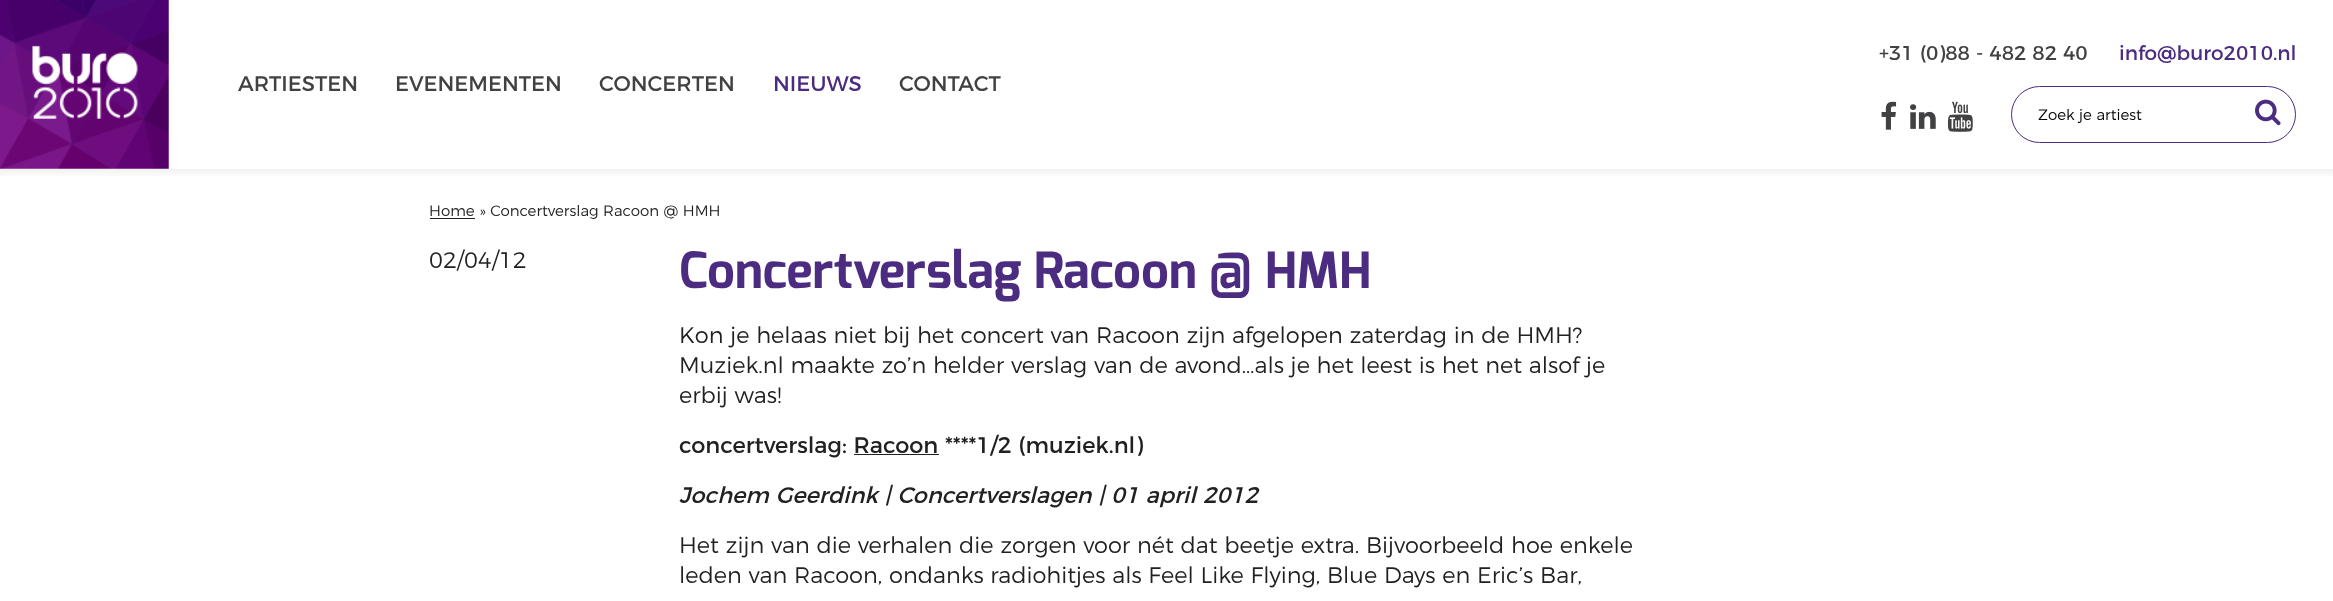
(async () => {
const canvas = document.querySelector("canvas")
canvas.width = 2333
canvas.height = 601
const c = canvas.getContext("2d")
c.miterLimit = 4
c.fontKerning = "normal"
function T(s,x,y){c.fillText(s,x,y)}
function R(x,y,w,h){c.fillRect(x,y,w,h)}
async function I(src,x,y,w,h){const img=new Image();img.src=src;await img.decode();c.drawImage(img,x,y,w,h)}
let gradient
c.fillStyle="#fff"
R(0,0,2333,601)
await I("1.png",0,0,169,169)
c.font="21.25px Montserrat"
c.fillStyle="#414042"
T("ARTIESTEN",238,91)
T("EVENEMENTEN",395,91)
T("CONCERTEN",599,91)
c.fillStyle="#4c2c81"
T("NIEUWS",773,91)
c.fillStyle="#414042"
T("CONTACT",899,91)
c.font="20px Montserrat"
T("+31 (0)88 - 482 82 40",1879,60)
c.fillStyle="#4c2c81"
T("info@buro2010.nl",2119,60)
await I("2.png",1881,101,16,29)
await I("3.png",1910,104,26,25)
await I("4.png",1947,101,26,31)
c.beginPath()
c.roundRect(2011.5,86.5,284,56,28)
c.strokeStyle="#4c2c81"
c.stroke()
c.font="300 15px Montserrat"
c.fillStyle="#000"
T("Zoek je artiest",2038,120)
await I("5.png",2255,99,26,27)
gradient = c.createLinearGradient(1167,169,1167,178)
gradient.addColorStop(0,"#f1f1f1")
gradient.addColorStop(1,"#fff")
c.fillStyle = gradient
R(0,169,2333,7)
c.fillStyle="#212121"
R(430,218,45,1)
T("Home » Concertverslag Racoon @ HMH",429,216)
c.font="300 22.5px Montserrat"
T("02/04/12",429,268)
c.font="bold 50px Exo"
c.fillStyle="#4c2c81"
T("Concertverslag Racoon @ HMH",679,288)
c.font="300 22.5px Montserrat"
c.fillStyle="#212121"
T("Kon je helaas niet bij het concert van Racoon zijn afgelopen zaterdag in de HMH?",679,343)
T("Muziek.nl maakte zo’n helder verslag van de avond…als je het leest is het net alsof je",679,373)
T("erbij was!",679,403)
c.font="22.5px Montserrat"
T("concertverslag: Racoon ****1/2 (muziek.nl)",679,453)
R(854,454,85,1)
c.font="italic 22.5px Montserrat"
T("Jochem Geerdink | Concertverslagen | 01 april 2012",679,503)
c.font="300 22.5px Montserrat"
T("Het zijn van die verhalen die zorgen voor nét dat beetje extra. Bijvoorbeeld hoe enkele",679,553)
T("leden van Racoon, ondanks radiohitjes als Feel Like Flying, Blue Days en Eric’s Bar,",679,583)
})()
